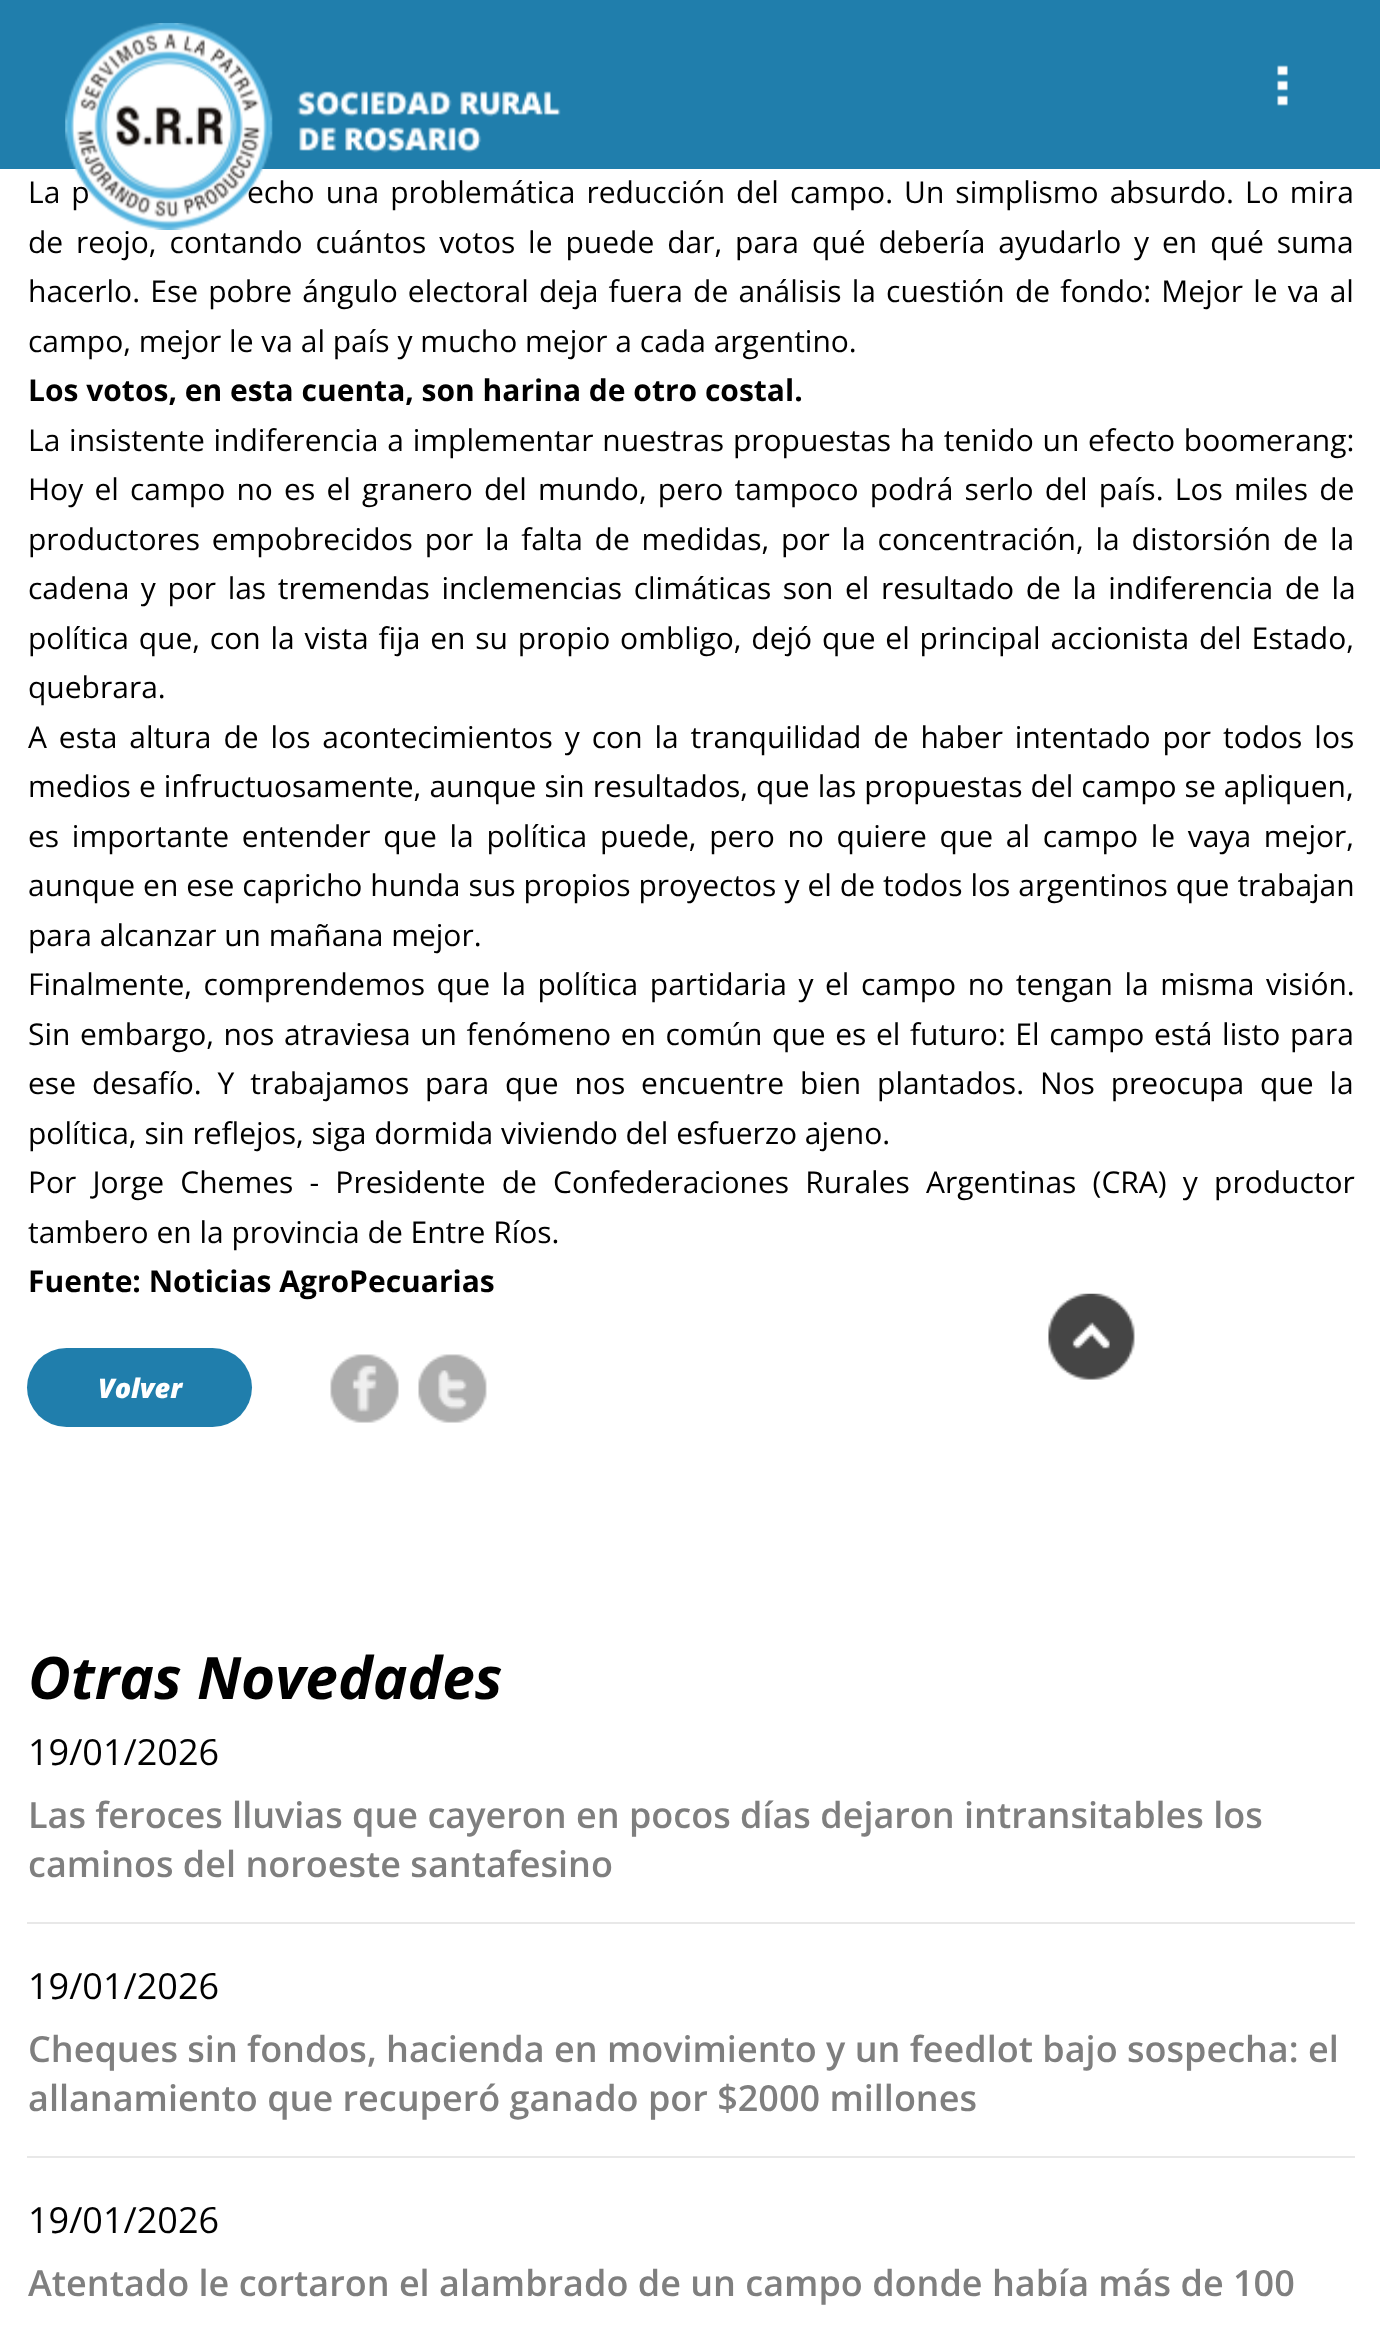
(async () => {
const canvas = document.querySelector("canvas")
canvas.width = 1380
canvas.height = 2328
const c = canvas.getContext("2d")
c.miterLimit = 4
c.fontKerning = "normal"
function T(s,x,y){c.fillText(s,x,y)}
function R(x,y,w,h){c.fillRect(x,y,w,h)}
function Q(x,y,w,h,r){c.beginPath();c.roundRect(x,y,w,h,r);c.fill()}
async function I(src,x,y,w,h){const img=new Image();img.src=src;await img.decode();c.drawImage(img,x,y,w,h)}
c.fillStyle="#fff"
R(0,0,1380,2328)
c.fillStyle="#207eac"
R(0,0,1380,169)
c.wordSpacing="3.25px"
c.font="30px Open Sans"
c.fillStyle="#000"
T("La p",28,203)
T("echo una problemática reducción del campo. Un simplismo absurdo. Lo mira",247,203)
await I("1.png",65,23,496,207)
await I("2.png",1277,65,11,41)
c.wordSpacing="5.1px"
T("de reojo, contando cuántos votos le puede dar, para qué debería ayudarlo y en qué suma",28,253)
c.wordSpacing="2.4px"
T("hacerlo. Ese pobre ángulo electoral deja fuera de análisis la cuestión de fondo: Mejor le va al",28,302)
c.wordSpacing="0px"
T("campo, mejor le va al país y mucho mejor a cada argentino.",28,352)
c.font="bold 30px Open Sans"
T("Los votos, en esta cuenta, son harina de otro costal.",28,401)
c.wordSpacing="1px"
c.font="30px Open Sans"
T("La insistente indiferencia a implementar nuestras propuestas ha tenido un efecto boomerang:",28,451)
c.wordSpacing="3.4px"
T("Hoy el campo no es el granero del mundo, pero tampoco podrá serlo del país. Los miles de",28,500)
c.wordSpacing="4px"
T("productores empobrecidos por la falta de medidas, por la concentración, la distorsión de la",28,550)
c.wordSpacing="3.75px"
T("cadena y por las tremendas inclemencias climáticas son el resultado de la indiferencia de la",28,599)
c.wordSpacing="2px"
T("política que, con la vista fija en su propio ombligo, dejó que el principal accionista del Estado,",28,649)
c.wordSpacing="0px"
T("quebrara.",28,698)
c.wordSpacing="4.1px"
T("A esta altura de los acontecimientos y con la tranquilidad de haber intentado por todos los",28,748)
c.wordSpacing="0.25px"
T("medios e infructuosamente, aunque sin resultados, que las propuestas del campo se apliquen,",28,797)
c.wordSpacing="4.9px"
T("es importante entender que la política puede, pero no quiere que al campo le vaya mejor,",28,847)
c.wordSpacing="0.2px"
T("aunque en ese capricho hunda sus propios proyectos y el de todos los argentinos que trabajan",28,896)
c.wordSpacing="0px"
T("para alcanzar un mañana mejor.",28,946)
c.wordSpacing="3.75px"
T("Finalmente, comprendemos que la política partidaria y el campo no tengan la misma visión.",28,995)
c.wordSpacing="1.8px"
T("Sin embargo, nos atraviesa un fenómeno en común que es el futuro: El campo está listo para",28,1045)
c.wordSpacing="8.1px"
T("ese desafío. Y trabajamos para que nos encuentre bien plantados. Nos preocupa que la",28,1094)
c.wordSpacing="0px"
T("política, sin reflejos, siga dormida viviendo del esfuerzo ajeno.",28,1144)
c.wordSpacing="8.4px"
T("Por Jorge Chemes - Presidente de Confederaciones Rurales Argentinas (CRA) y productor",28,1193)
c.wordSpacing="0px"
T("tambero en la provincia de Entre Ríos.",28,1243)
c.font="bold 30px Open Sans"
T("Fuente: Noticias AgroPecuarias",28,1292)
c.fillStyle="#207eac"
Q(27,1348,225,79,39.5)
c.font="italic 800 27px Open Sans"
c.fillStyle="#fff"
T("Volver",98,1398)
await I("3.png",330,1354,69,69)
await I("4.png",418,1354,69,69)
c.font="italic bold 58.5px Open Sans"
c.fillStyle="#000"
T("Otras Novedades",28,1699)
c.font="36px Open Sans"
T("19/01/2026",28,1765)
c.font="600 36px Open Sans"
c.fillStyle="#7f7f7f"
T("Las feroces lluvias que cayeron en pocos días dejaron intransitables los",28,1828)
T("caminos del noroeste santafesino",28,1877)
c.fillStyle="#e8e8e8"
R(27,1922,1328,2)
c.font="36px Open Sans"
c.fillStyle="#000"
T("19/01/2026",28,1999)
c.font="600 36px Open Sans"
c.fillStyle="#7f7f7f"
T("Cheques sin fondos, hacienda en movimiento y un feedlot bajo sospecha: el",28,2062)
T("allanamiento que recuperó ganado por $2000 millones",28,2111)
c.fillStyle="#e8e8e8"
R(27,2156,1328,2)
c.font="36px Open Sans"
c.fillStyle="#000"
T("19/01/2026",28,2233)
c.font="600 36px Open Sans"
c.fillStyle="#7f7f7f"
T("Atentado le cortaron el alambrado de un campo donde había más de 100",28,2296)
await I("5.png",1048,1293,87,87)
})()
